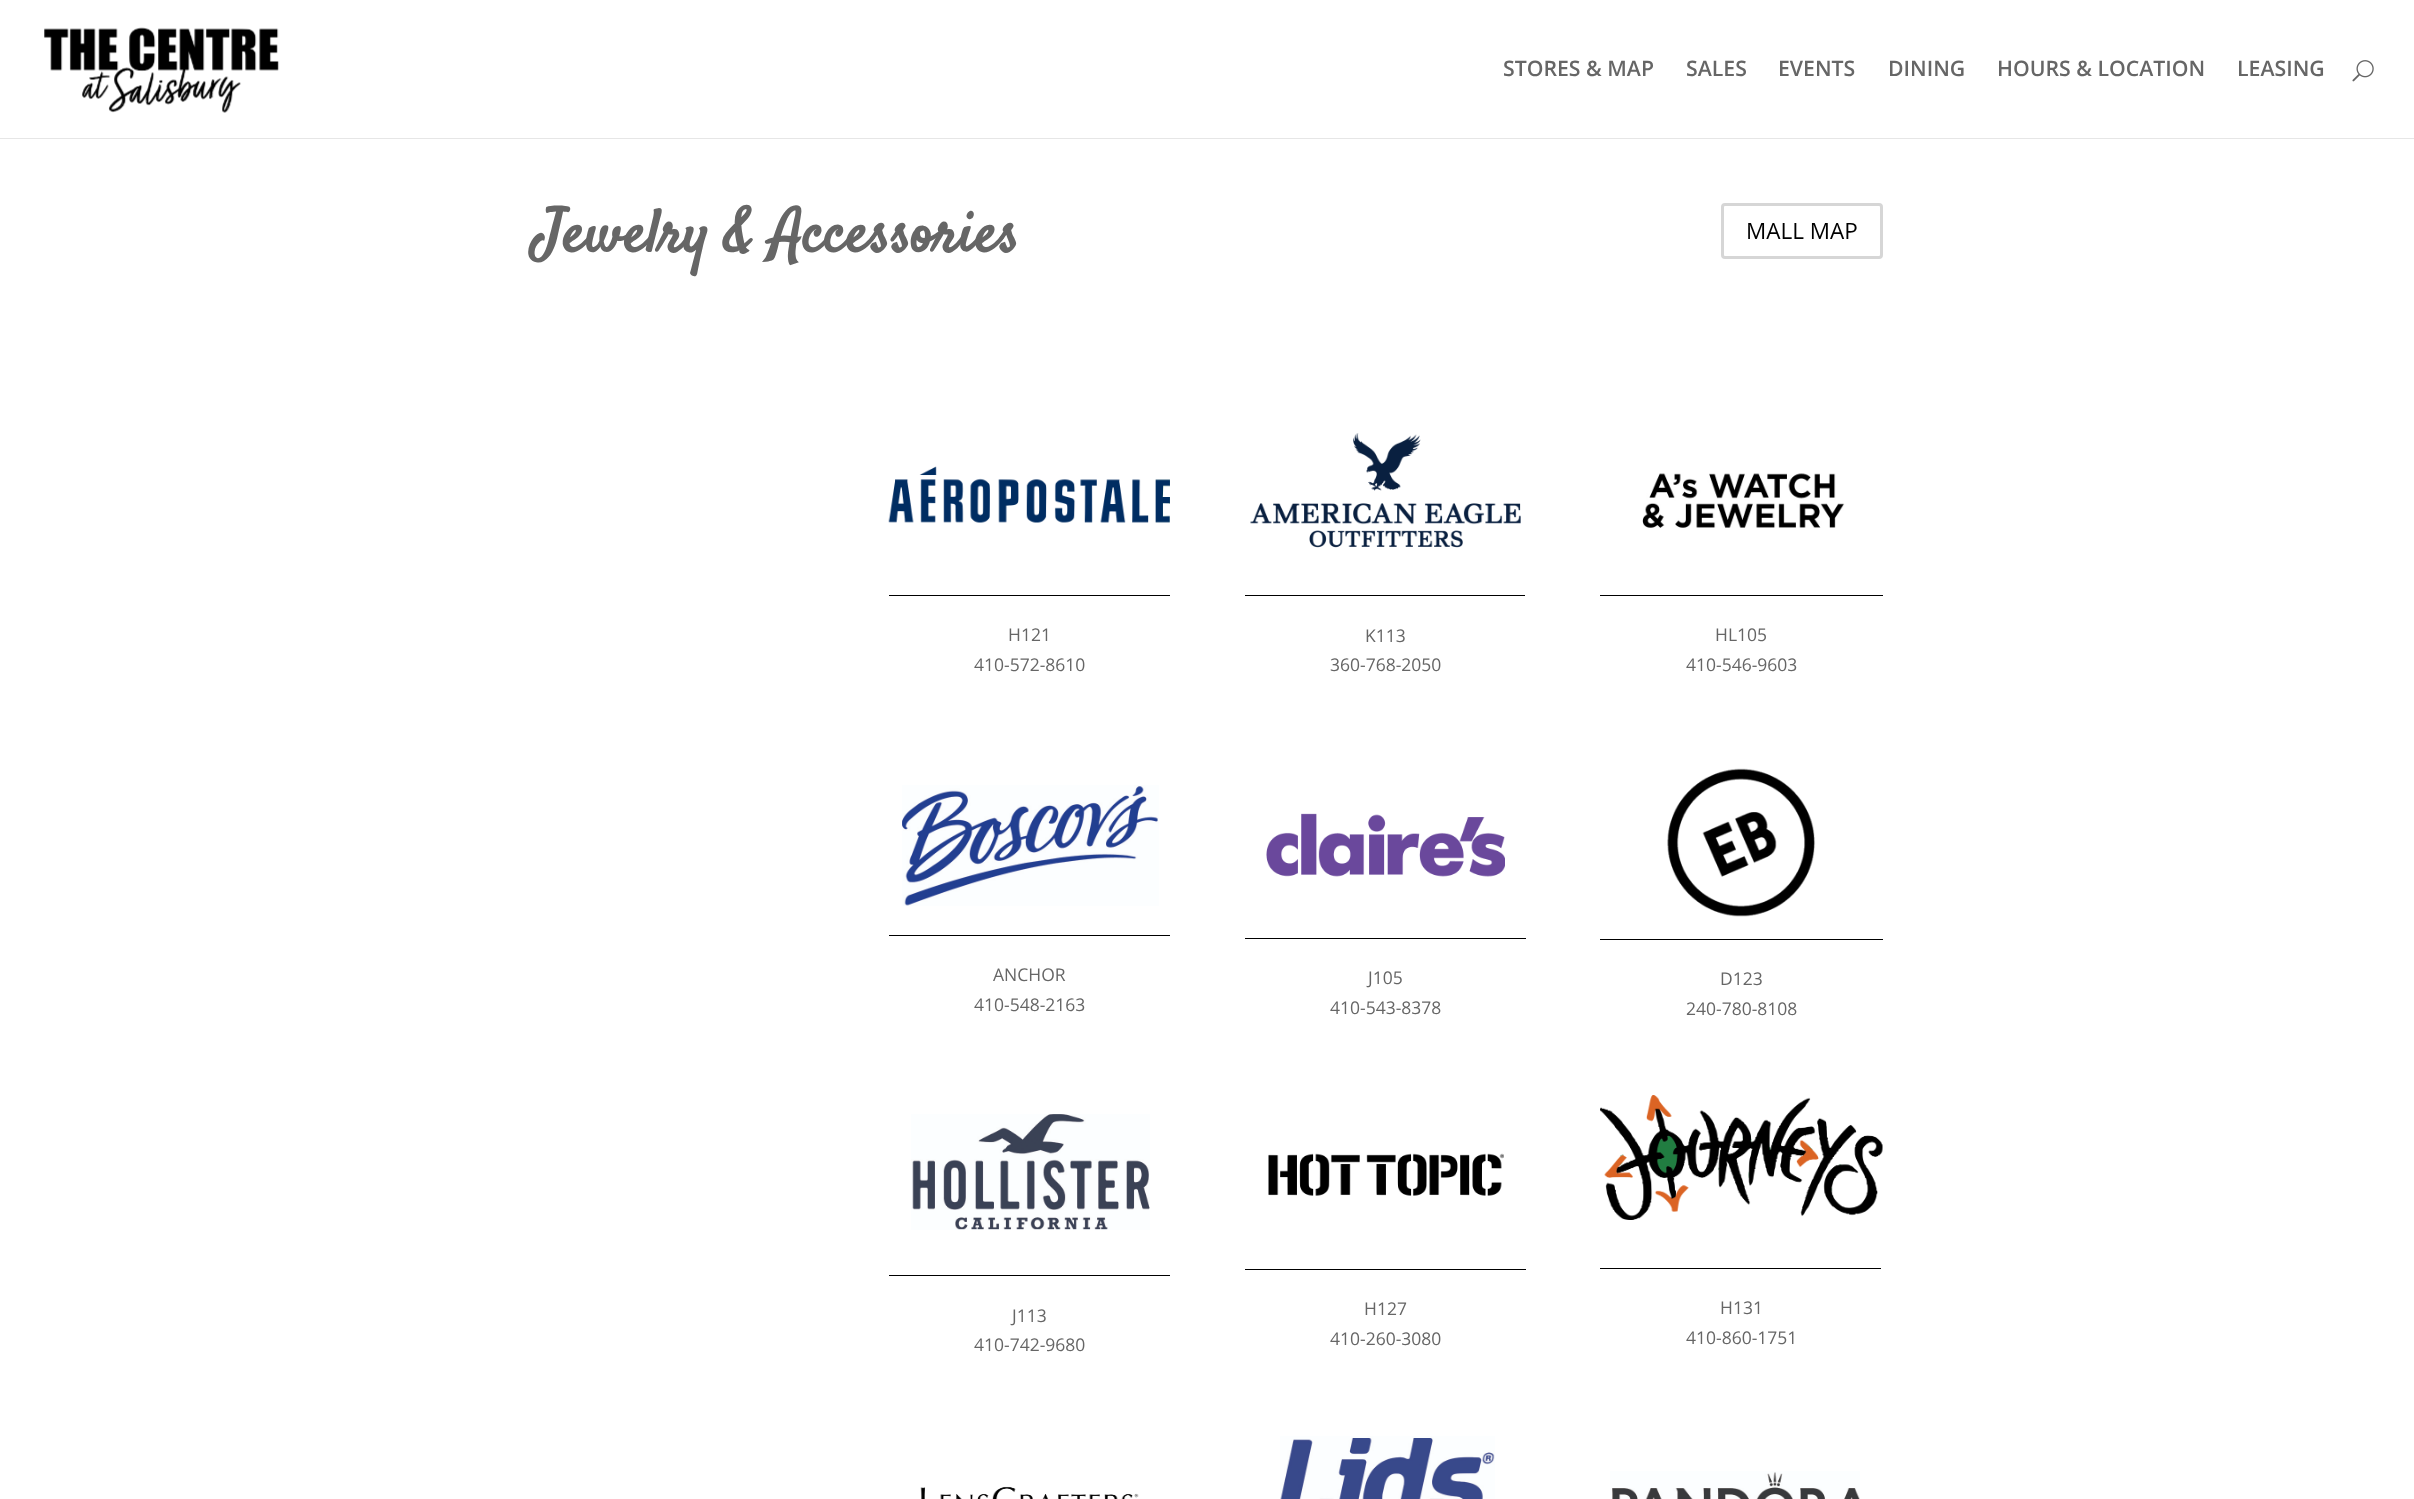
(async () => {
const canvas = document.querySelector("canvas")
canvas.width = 2414
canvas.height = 1499
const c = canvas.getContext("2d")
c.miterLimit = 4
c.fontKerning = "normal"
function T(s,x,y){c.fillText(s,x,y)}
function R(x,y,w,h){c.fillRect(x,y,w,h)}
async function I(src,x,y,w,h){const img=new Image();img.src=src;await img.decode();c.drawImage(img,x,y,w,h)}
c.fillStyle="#fff"
R(0,0,2414,1499)
c.fillStyle="#e6e6e6"
R(0,138,2414,1)
await I("1.png",44,27,235,86)
c.font="600 21.25px Open Sans"
c.fillStyle="#666"
T("STORES & MAP",1503,76)
T("SALES",1686,76)
T("EVENTS",1778,76)
T("DINING",1888,76)
T("HOURS & LOCATION",1997,76)
T("LEASING",2237,76)
await I("2.png",2352,60,22,22)
c.font="bold 60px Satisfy"
T("Jewelry & Accessories",533,251)
c.beginPath()
c.roundRect(1722.5,204.5,159,53,2.5)
c.strokeStyle="#d6d6d6"
c.lineWidth=3
c.stroke()
c.font="22.5px Open Sans"
c.fillStyle="#000"
T("MALL MAP",1746,239)
await I("3.png",888,466,282,57)
R(889,595,281,1)
c.font="17.5px Open Sans"
c.fillStyle="#666"
T("H121",1008,641)
T("410-572-8610",974,671)
await I("4.png",1250,433,271,115)
c.fillStyle="#000"
R(1245,595,280,1)
c.fillStyle="#666"
T("K113",1365,642)
T("360-768-2050",1330,671)
await I("5.png",1642,473,203,55)
c.fillStyle="#000"
R(1600,595,283,1)
c.fillStyle="#666"
T("HL105",1715,641)
T("410-546-9603",1686,671)
await I("6.png",902,785,257,121)
c.fillStyle="#000"
R(889,935,281,1)
c.fillStyle="#666"
T("ANCHOR",993,981)
T("410-548-2163",974,1011)
await I("7.png",1266,813,239,64)
c.fillStyle="#000"
R(1245,938,281,1)
c.fillStyle="#666"
T("J105",1368,984)
T("410-543-8378",1330,1014)
await I("8.png",1667,768,149,149)
c.fillStyle="#000"
R(1600,939,283,1)
c.fillStyle="#666"
T("D123",1720,985)
T("240-780-8108",1686,1015)
await I("9.png",911,1114,239,116)
c.fillStyle="#000"
R(889,1275,281,1)
c.fillStyle="#666"
T("J113",1012,1322)
T("410-742-9680",974,1351)
await I("10.png",1268,1153,236,43)
c.fillStyle="#000"
R(1245,1269,281,1)
c.fillStyle="#666"
T("H127",1364,1315)
T("410-260-3080",1330,1345)
await I("11.png",1600,1095,283,125)
c.fillStyle="#000"
R(1600,1268,281,1)
c.fillStyle="#666"
T("H131",1720,1314)
T("410-860-1751",1686,1344)
await I("12.png",920,1486,219,13)
await I("13.png",1280,1436,215,63)
await I("14.png",1610,1471,250,28)
})()
